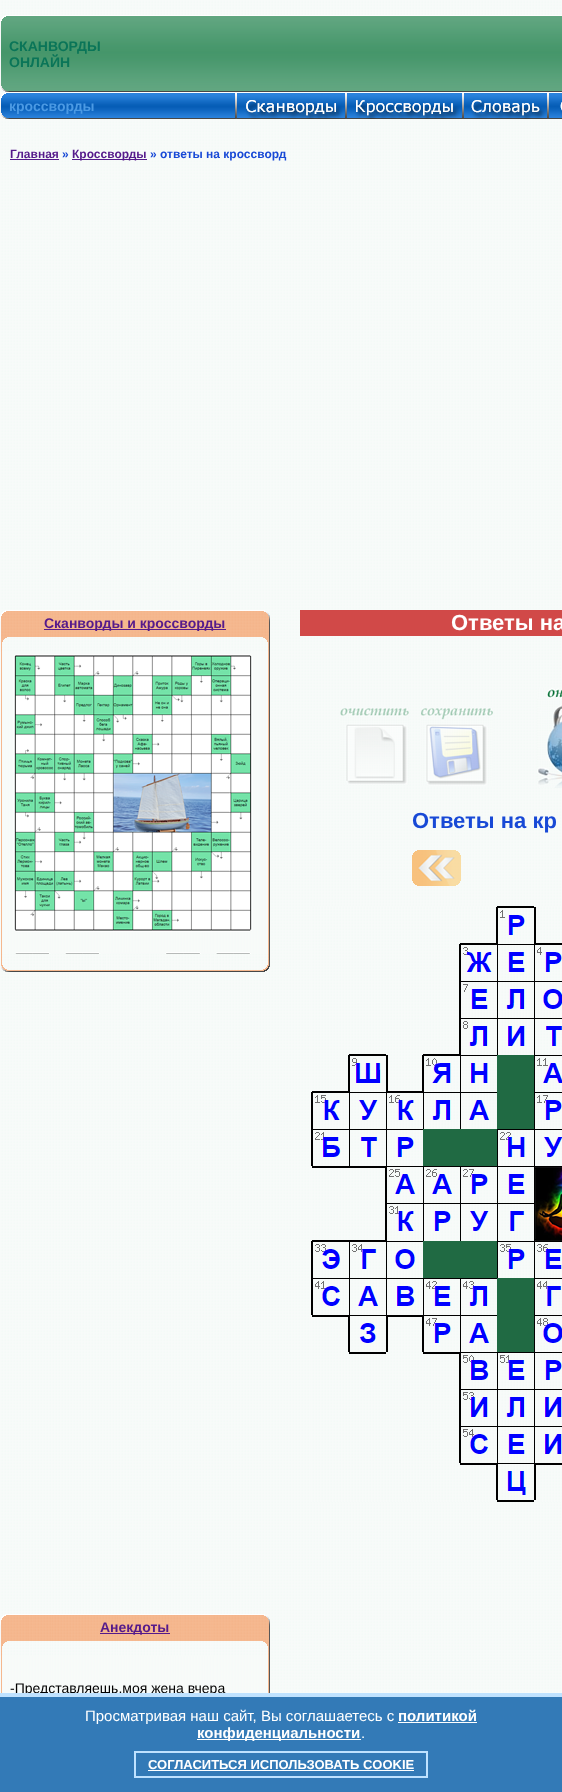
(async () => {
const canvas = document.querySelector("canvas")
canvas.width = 562
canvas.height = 1792
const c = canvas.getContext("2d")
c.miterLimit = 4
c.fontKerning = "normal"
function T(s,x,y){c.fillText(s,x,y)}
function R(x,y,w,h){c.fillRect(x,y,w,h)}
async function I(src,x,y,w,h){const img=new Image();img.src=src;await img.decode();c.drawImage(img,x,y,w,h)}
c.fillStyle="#fff"
R(0,0,562,1792)
await I("1.png",0,0,562,1693)
await I("2.png",0,15,9,77)
await I("3.png",9,15,392,77)
c.font="bold 14px Liberation Sans"
c.fillStyle="#0a7558"
T("СКАНВОРДЫ",9,51)
T("ОНЛАЙН",9,67)
await I("4.png",401,15,161,77)
await I("5.png",0,92,9,27)
await I("6.png",9,92,226,27)
c.fillStyle="#4b9ae4"
T("кроссворды",9,111)
await I("7.png",235,92,110,27)
await I("8.png",345,92,117,27)
await I("9.png",462,92,85,27)
await I("10.png",547,92,15,27)
c.font="bold 12px Liberation Sans"
c.fillStyle="#551a8b"
T("Главная",10,158)
R(10,159,49,1)
c.fillStyle="#1849d6"
T("»",62,158)
c.fillStyle="#551a8b"
R(72,159,75,1)
T("Кроссворды",72,158)
c.fillStyle="#1849d6"
T("» ответы на кроссворд",150,158)
await I("11.png",0,610,270,42)
c.fillStyle="#551a8b"
R(44,629,182,1)
c.font="bold 14px Liberation Sans"
T("Сканворды и кроссворды",44,628)
await I("12.png",1,652,269,302)
await I("13.png",13,654,240,278)
await I("14.png",15,952,236,2)
await I("15.png",1,954,269,18)
await I("16.png",0,1614,270,42)
R(100,1633,70,1)
T("Анекдоты",100,1632)
await I("17.png",1,1656,269,37)
c.font="14px Liberation Sans"
c.fillStyle="#000"
T("-Представляешь,моя жена вчера",10,1693)
c.fillStyle="#d14948"
R(300,610,262,26)
c.font="bold 22px Liberation Sans"
c.fillStyle="#fff"
T("Ответы на",451,630)
await I("18.png",340,707,69,78)
await I("19.png",421,707,72,79)
await I("20.png",537,688,25,100)
c.fillStyle="#1849d6"
T("Ответы на кр",412,828)
await I("21.png",412,850,49,36)
await I("22.png",311,906,251,596)
c.fillStyle="#337ab7"
R(0,1697,562,95)
c.fillStyle="#bfe2ff"
R(0,1693,562,4)
c.font="15px Liberation Sans"
c.fillStyle="#fff"
T("Просматривая наш сайт, Вы соглашаетесь с",85,1721)
c.font="bold 15px Liberation Sans"
T("политикой",398,1721)
R(398,1722,79,1)
R(197,1739,164,1)
T("конфиденциальности",197,1738)
c.font="15px Liberation Sans"
T(".",361,1738)
c.strokeStyle="#bfe2ff"
c.lineWidth=2
c.strokeRect(135,1752,292,25)
c.font="bold 13px Liberation Sans"
T("СОГЛАСИТЬСЯ ИСПОЛЬЗОВАТЬ COOKIE",148,1769)
R(148,1770,266,1)
})()
